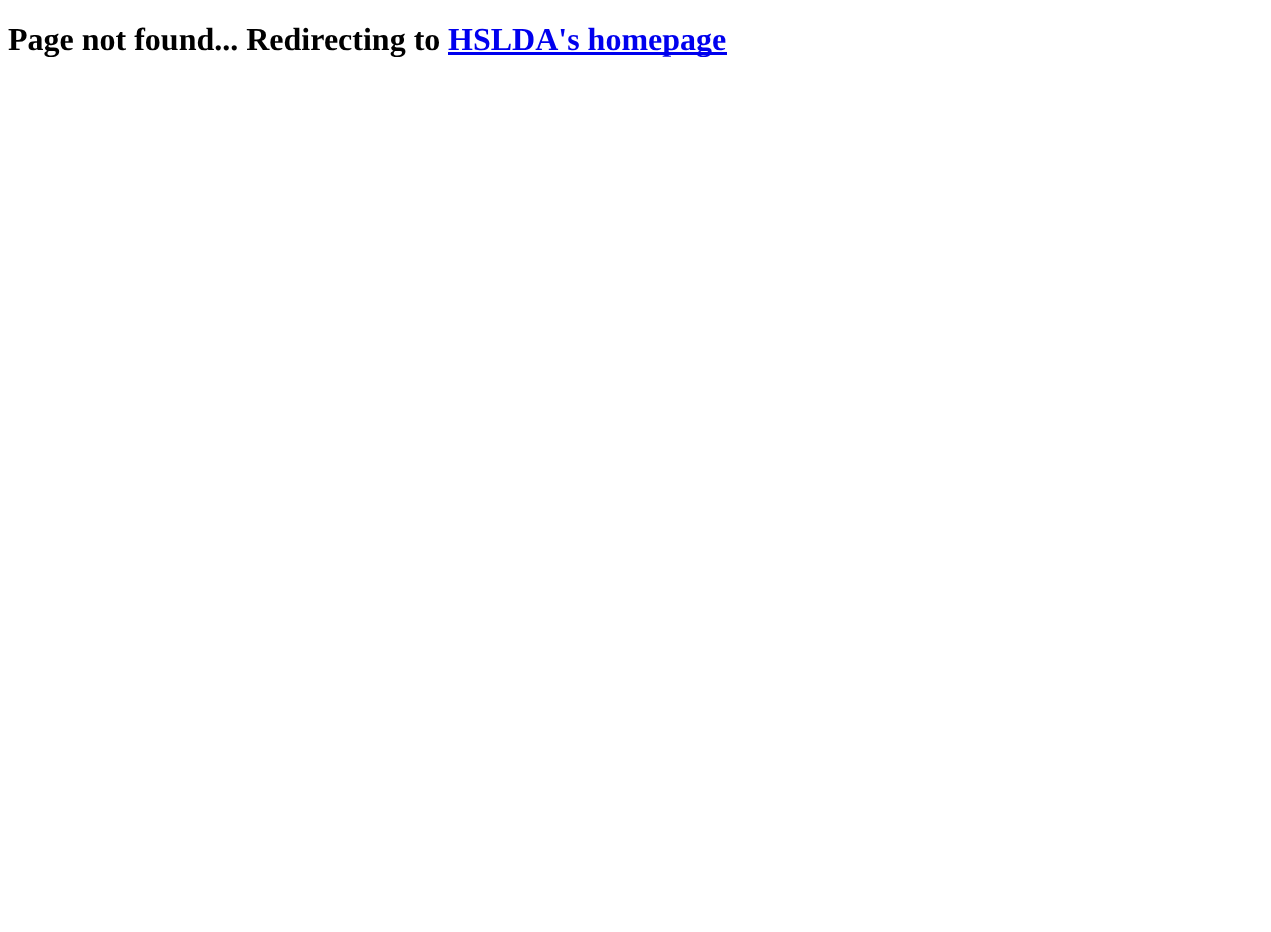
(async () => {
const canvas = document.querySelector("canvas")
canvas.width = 1271
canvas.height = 932
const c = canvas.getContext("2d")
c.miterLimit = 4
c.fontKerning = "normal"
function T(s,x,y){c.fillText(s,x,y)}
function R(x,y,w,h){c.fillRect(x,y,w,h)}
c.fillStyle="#fff"
R(0,0,1271,932)
c.font="bold 32px Liberation Serif"
c.fillStyle="#000"
T("Page not found... Redirecting to",8,50)
c.fillStyle="#00e"
R(448,52,279,3)
T("HSLDA's homepage",448,50)
})()
